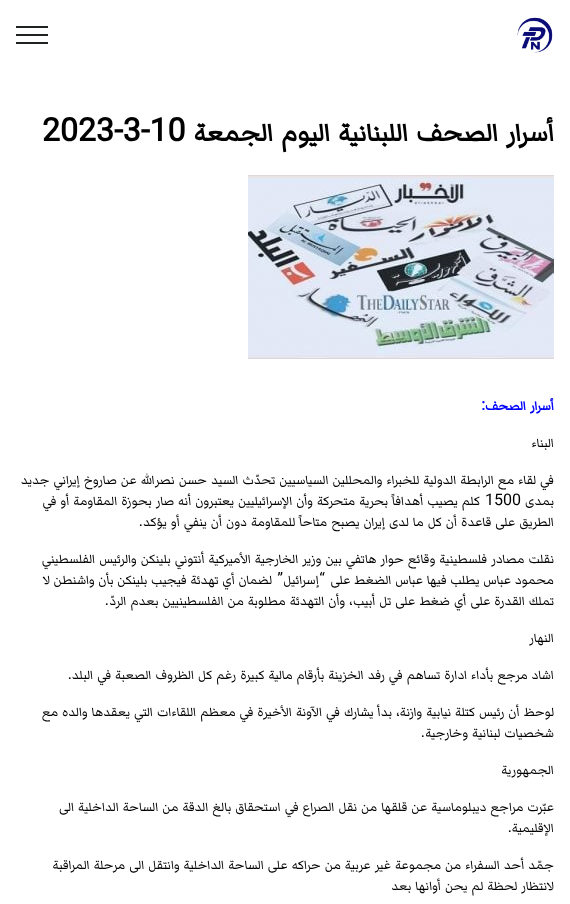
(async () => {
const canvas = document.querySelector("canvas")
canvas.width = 570
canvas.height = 904
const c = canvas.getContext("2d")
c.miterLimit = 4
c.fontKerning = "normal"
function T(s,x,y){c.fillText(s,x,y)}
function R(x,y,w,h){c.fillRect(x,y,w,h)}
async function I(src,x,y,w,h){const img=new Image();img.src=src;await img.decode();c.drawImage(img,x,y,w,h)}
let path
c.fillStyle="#fff"
R(0,0,570,904)
await I("1.png",517,17,36,36)
path = new Path2D("M17 27h30m-30 8h30m-30 8h30")
c.strokeStyle="#1e2122"
c.lineWidth=2
c.lineCap="square"
c.stroke(path)
c.wordSpacing="2.5px"
c.direction="rtl"
c.font="bold 32px Markazi Text"
c.fillStyle="#000"
T("أسرار الصحف اللبنانية اليوم الجمعة",554,141)
c.wordSpacing="0px"
c.direction="ltr"
c.font="bold 32px Roboto"
T("2023-3-10",42,141)
await I("2.png",248,175,306,184)
c.wordSpacing="1.3px"
c.direction="rtl"
c.font="bold 16px Markazi Text"
c.fillStyle="#00f"
T("أسرار الصحف",554,410)
c.wordSpacing="0px"
c.font="bold 16px Roboto"
T(":",485,410)
c.font="16px Markazi Text"
c.fillStyle="#000"
T("البناء",554,447)
c.wordSpacing="1.3px"
T("في لقاء مع الرابطة الدولية للخبراء والمحللين السياسيين تحدّث السيد حسن نصرالله عن صاروخ إيراني جديد",554,484)
c.wordSpacing="0px"
T("بمدى",554,505)
c.direction="ltr"
c.font="16px Roboto"
T("1500",485,505)
c.wordSpacing="1.25px"
c.direction="rtl"
c.font="16px Markazi Text"
T("كلم يصيب أهدافاً بحرية متحركة وأن الإسرائيليين يعتبرون أنه صار بحوزة المقاومة أو في",480,505)
c.wordSpacing="1.3px"
T("الطريق على قاعدة أن كل ما لدى إيران يصبح متاحاً للمقاومة دون أن ينفي أو يؤكد",554,526)
c.wordSpacing="0px"
c.font="16px Roboto"
T(".",143,526)
c.wordSpacing="1.3px"
c.font="16px Markazi Text"
T("نقلت مصادر فلسطينية وقائع حوار هاتفي بين وزير الخارجية الأميركية أنتوني بلينكن والرئيس الفلسطيني",554,563)
c.wordSpacing="1px"
T("محمود عباس يطلب فيها عباس الضغط على",554,584)
c.wordSpacing="0px"
c.font="16px Roboto"
T("“",325,584)
c.font="16px Markazi Text"
T("إسرائيل",319,584)
c.font="16px Roboto"
T("”",283,584)
c.wordSpacing="1px"
c.font="16px Markazi Text"
T("لضمان أي تهدئة فيجيب بلينكن بأن واشنطن لا",272,584)
c.wordSpacing="1.3px"
T("تملك القدرة على أي ضغط على تل أبيب، وأن التهدئة مطلوبة من الفلسطينيين بعدم الردّ",554,605)
c.wordSpacing="0px"
c.font="16px Roboto"
T(".",109,605)
c.font="16px Markazi Text"
T("النهار",554,642)
c.wordSpacing="1.3px"
T("اشاد مرجع بأداء ادارة تساهم في رفد الخزينة بأرقام مالية كبيرة رغم كل الظروف الصعبة في البلد",554,679)
c.wordSpacing="0px"
c.font="16px Roboto"
T(".",72,679)
c.wordSpacing="1.3px"
c.font="16px Markazi Text"
T("لوحظ أن رئيس كتلة نيابية وازنة، بدأ يشارك في الآونة الأخيرة في معظم اللقاءات التي يعقدها والده مع",554,716)
T("شخصيات لبنانية وخارجية",554,737)
c.wordSpacing="0px"
c.font="16px Roboto"
T(".",425,737)
c.font="16px Markazi Text"
T("الجمهورية",554,774)
c.wordSpacing="1.3px"
T("عبّرت مراجع ديبلوماسية عن قلقها من نقل الصراع في استحقاق بالغ الدقة من الساحة الداخلية الى",554,811)
c.wordSpacing="0px"
T("الإقليمية",554,832)
c.font="16px Roboto"
T(".",512,832)
c.wordSpacing="1.3px"
c.font="16px Markazi Text"
T("جمّد أحد السفراء من مجموعة غير عربية من حراكه على الساحة الداخلية وانتقل الى مرحلة المراقبة",554,869)
T("لانتظار لحظة لم يحن أوانها بعد",554,890)
})()
